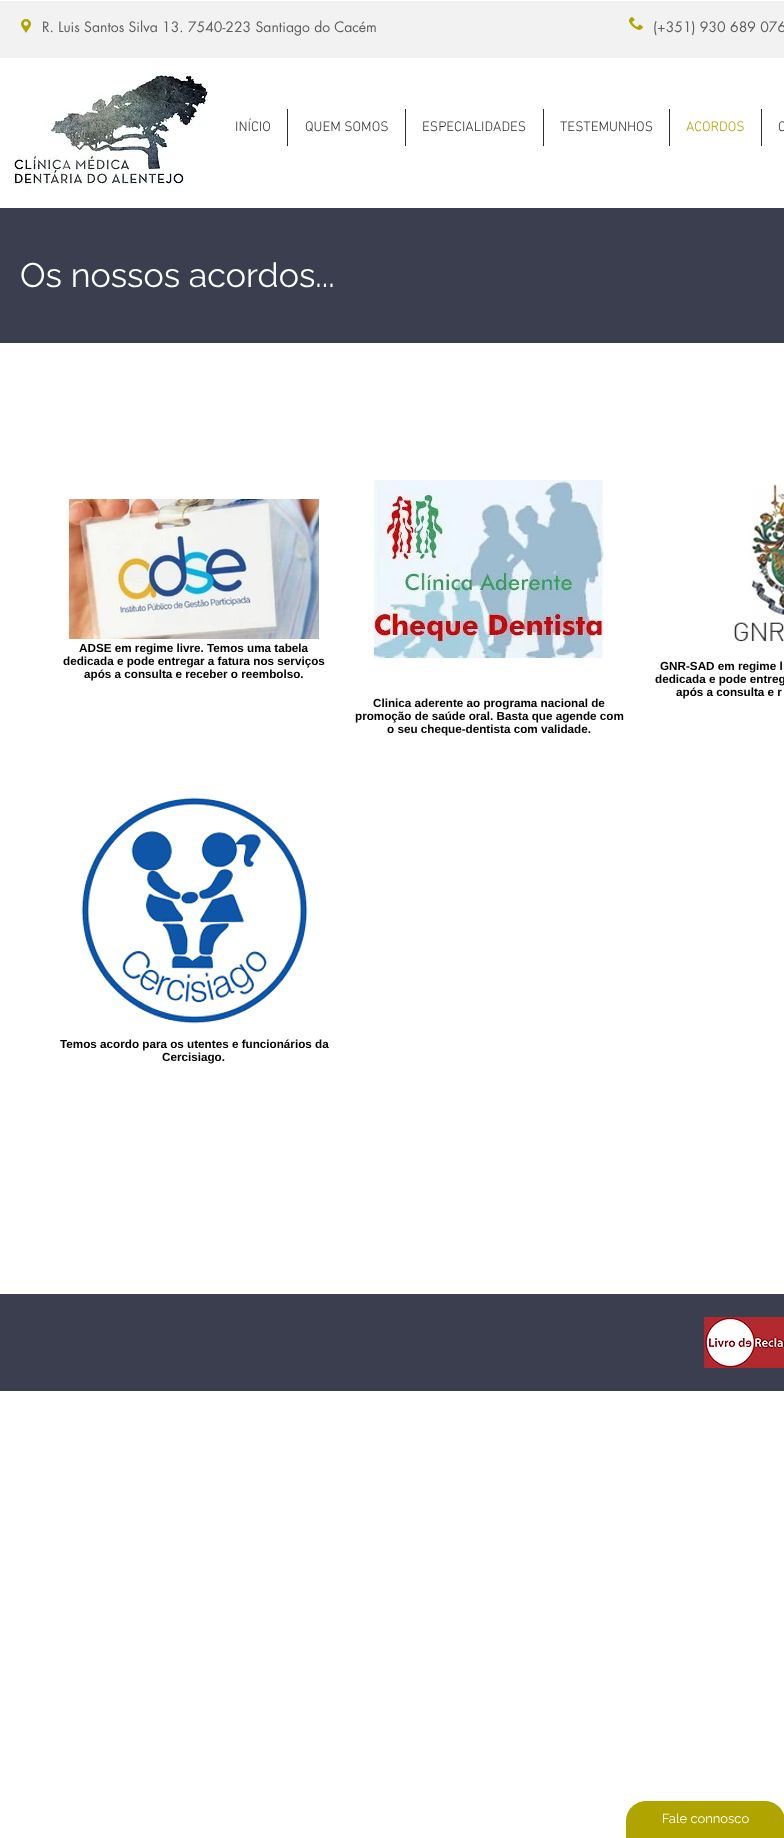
(async () => {
const canvas = document.querySelector("canvas")
canvas.width = 784
canvas.height = 1838
const c = canvas.getContext("2d")
c.miterLimit = 4
c.fontKerning = "normal"
function T(s,x,y){c.fillText(s,x,y)}
function R(x,y,w,h){c.fillRect(x,y,w,h)}
async function I(src,x,y,w,h){const img=new Image();img.src=src;await img.decode();c.drawImage(img,x,y,w,h)}
let path
c.fillStyle="#fff"
R(0,0,784,1838)
c.fillStyle="#f2f2f2"
R(0,1,784,57)
await I("1.png",21,19,10,14)
c.font="14px futura"
c.fillStyle="#605e5e"
T("R. Luis Santos Silva 13. 7540-223 Santiago do Cacém",42,32)
await I("2.png",629,17,14,13)
T("(+351) 930 689 076",653,32)
await I("3.png",12,73,196,113)
c.font="300 14px 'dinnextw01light'"
c.fillStyle="#2f2e2e"
T("INÍCIO",235,131)
R(287,109,1,37)
T("QUEM SOMOS",305,131)
R(405,109,1,37)
T("ESPECIALIDADES",422,131)
R(543,109,1,37)
T("TESTEMUNHOS",560,131)
R(669,109,1,37)
c.fillStyle="#afa400"
T("ACORDOS",686,131)
c.fillStyle="#2f2e2e"
R(761,109,1,37)
T("C",778,131)
c.fillStyle="#3a3e4f"
R(0,208,784,135)
c.font="34px Raleway"
c.fillStyle="#fff"
T("Os nossos acordos...",20,287)
await I("4.png",69,499,250,140)
c.font="bold 11.7px Liberation Sans"
c.fillStyle="#000"
T("ADSE em regime livre. Temos uma tabela",79,652)
T("dedicada e pode entregar a fatura nos serviços",63,665)
T("após a consulta e receber o reembolso.",84,678)
await I("5.png",733,484,51,160)
T("GNR-SAD em regime l",660,670)
T("dedicada e pode entreg",655,683)
T("após a consulta e r",676,696)
await I("6.png",372,479,232,181)
T("Clinica aderente ao programa nacional de",373,707)
T("promoção de saúde oral. Basta que agende com",355,720)
T("o seu cheque-dentista com validade.",387,733)
await I("7.png",81,797,227,227)
T("Temos acordo para os utentes e funcionários da",60,1048)
T("Cercisiago.",162,1061)
c.fillStyle="#3a3e4f"
R(0,1294,784,97)
await I("8.png",704,1317,80,51)
c.fillStyle="#afa400"
path = new Path2D("M646 1801h119c11 0 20 9 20 20v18h-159v-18c0-11 9-20 20-20z")
c.fill(path)
c.font="13px Raleway"
c.fillStyle="#fff"
T("Fale connosco",662,1823)
})()
